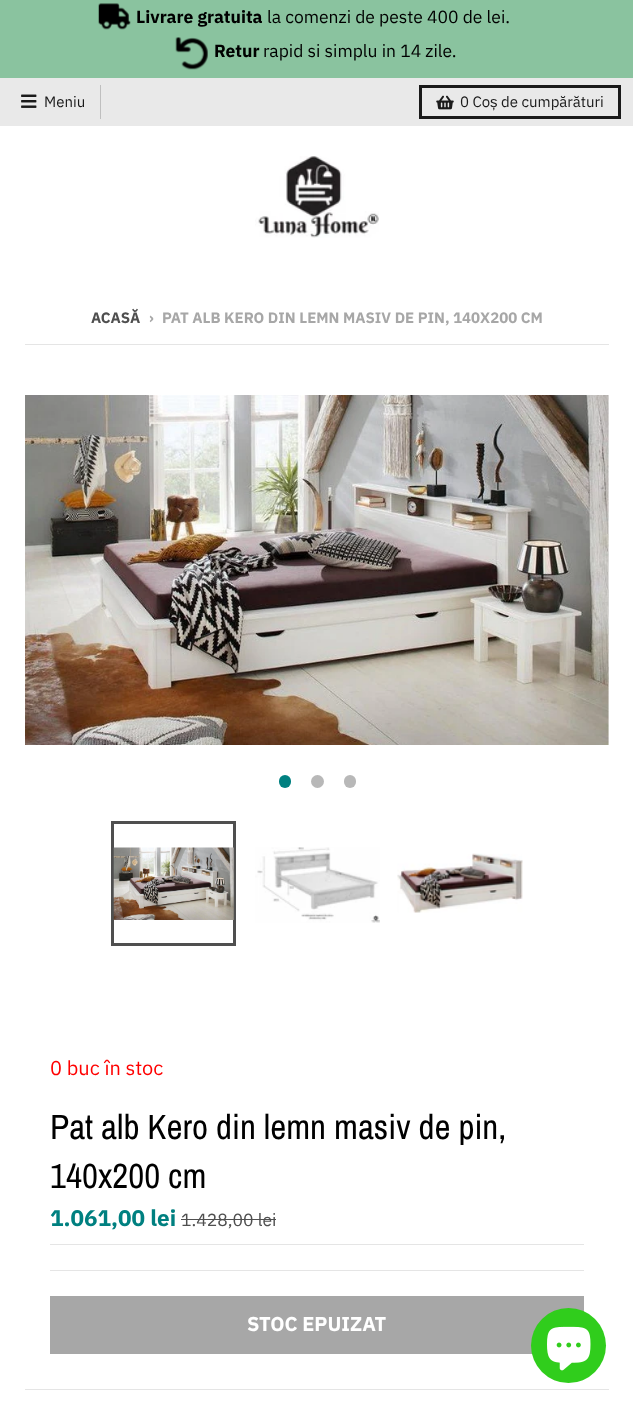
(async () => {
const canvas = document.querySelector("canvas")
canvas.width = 633
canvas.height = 1408
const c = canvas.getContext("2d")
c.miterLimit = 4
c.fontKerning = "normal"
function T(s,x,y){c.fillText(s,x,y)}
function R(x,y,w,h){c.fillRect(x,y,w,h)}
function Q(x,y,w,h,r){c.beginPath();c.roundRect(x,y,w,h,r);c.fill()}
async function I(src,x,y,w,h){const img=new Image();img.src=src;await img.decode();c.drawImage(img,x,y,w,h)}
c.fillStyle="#fff"
R(0,0,633,1408)
c.fillStyle="#8ac39f"
R(0,0,633,78)
await I("1.png",98,3,33,27)
c.font="bold 17.5px IBM Plex Sans"
c.fillStyle="#000"
T("Livrare gratuita",136,23)
c.font="17.5px IBM Plex Sans"
T("la comenzi de peste 400 de lei.",267,23)
await I("2.png",175,37,33,33)
c.font="bold 17.5px IBM Plex Sans"
T("Retur",214,57)
c.font="17.5px IBM Plex Sans"
T("rapid si simplu in 14 zile.",263,57)
c.fillStyle="#e9e9e9"
R(0,78,633,48)
c.fillStyle="#bfbfbf"
R(100,85,1,34)
await I("3.png",21,94,16,14)
c.font="15px IBM Plex Sans"
c.fillStyle="#1a1a1a"
T("Meniu",44,107)
c.strokeStyle="#1a1a1a"
c.lineWidth=3
c.strokeRect(420.5,86.5,199,31)
await I("4.png",436,95,18,15)
T("0 Co",460,107)
c.font="15px Liberation Sans"
T("ș",490,107)
c.font="15px IBM Plex Sans"
T("de cumpărături",501,107)
await I("5.png",255,156,124,82)
c.font="bold 15px IBM Plex Sans"
c.fillStyle="#4f4f4f"
T("ACASĂ",91,323)
c.fillStyle="#a7a7a7"
T("›",149,323)
T("PAT ALB KERO DIN LEMN MASIV DE PIN, 140X200 CM",162,323)
c.fillStyle="#e5e5e5"
R(25,344,584,1)
await I("6.png",25,395,584,350)
c.fillStyle="#008080"
Q(279,775,12,13,6)
c.fillStyle="#b8b8b8"
c.beginPath()
c.arc(317.5,781.5,6.5,0,7)
c.fill()
Q(344,775,12,13,6)
c.strokeStyle="#4f4f4f"
c.strokeRect(112.5,822.5,122,122)
await I("7.png",113,847,121,73)
await I("8.png",255,847,125,76)
await I("9.png",397,853,126,60)
c.fillStyle="#e5e5e5"
R(25,1389,584,1)
c.font="20px IBM Plex Sans"
c.fillStyle="#f00"
T("0 buc în stoc",50,1075)
c.font="35px Archivo Narrow"
c.fillStyle="#000"
T("Pat alb Kero din lemn masiv de pin,",50,1139)
T("140x200 cm",50,1188)
c.fillStyle="#e5e5e5"
R(50,1244,534,1)
c.font="bold 22.5px IBM Plex Sans"
c.fillStyle="#008080"
T("1.061,00 lei",50,1226)
c.font="17.5px IBM Plex Sans"
c.fillStyle="#4f4f4f"
T("1.428,00 lei",181,1226)
R(181,1219,95,1)
c.fillStyle="#e5e5e5"
R(50,1270,534,1)
c.fillStyle="#a7a7a7"
R(50,1296,534,58)
c.font="bold 20px IBM Plex Sans"
c.fillStyle="#fff"
T("STOC EPUIZAT",247,1331)
c.fillStyle="#30cd1c"
c.beginPath()
c.arc(568.5,1345.5,37.5,0,7)
c.fill()
await I("10.png",547,1326,44,45)
})()
